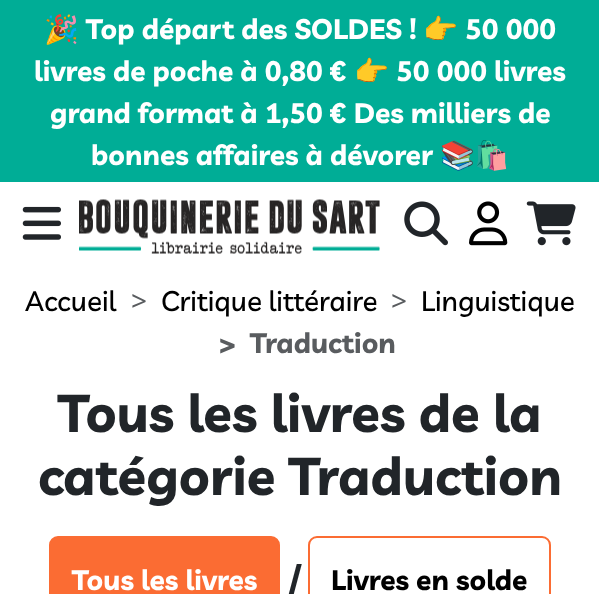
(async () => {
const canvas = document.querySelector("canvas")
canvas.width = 599
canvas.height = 594
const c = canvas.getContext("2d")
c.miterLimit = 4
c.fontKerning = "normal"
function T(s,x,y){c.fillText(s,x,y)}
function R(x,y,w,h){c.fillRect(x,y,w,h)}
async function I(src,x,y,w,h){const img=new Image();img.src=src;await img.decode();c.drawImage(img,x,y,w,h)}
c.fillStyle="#fff"
R(0,0,599,594)
c.fillStyle="#00ad96"
R(0,0,599,182)
c.font="28px Noto Color Emoji"
c.fillStyle="#fff"
T("🎉",44,39)
c.font="bold 28px Livvic"
T("Top départ des SOLDES !",86,39)
c.font="28px Noto Color Emoji"
T("👉",423,39)
c.font="bold 28px Livvic"
T("50 000",465,39)
T("livres de poche à 0,80 €",34,81)
c.font="28px Noto Color Emoji"
T("👉",354,81)
c.font="bold 28px Livvic"
T("50 000 livres",396,81)
T("grand format à 1,50 € Des milliers de",50,123)
T("bonnes affaires à dévorer",91,165)
c.font="28px Noto Color Emoji"
T("📚🛍️",440,165)
await I("1.png",22,206,39,34)
await I("2.png",79,199,301,55)
await I("3.png",404,201,44,45)
await I("4.png",469,201,39,45)
await I("5.png",526,201,50,45)
c.font="500 28px Livvic"
c.fillStyle="#000"
T("Accueil",25,311)
c.font="28px Noto Sans"
c.fillStyle="#595c5f"
T(">",131,311)
c.font="500 28px Livvic"
c.fillStyle="#000"
T("Critique littéraire",161,311)
c.font="28px Noto Sans"
c.fillStyle="#595c5f"
T(">",391,311)
c.font="500 28px Livvic"
c.fillStyle="#000"
T("Linguistique",421,311)
c.font="bold 28px Livvic"
c.fillStyle="#595c5f"
T(">",219,353)
T("Traduction",250,353)
c.font="bold 52.5px Livvic"
c.fillStyle="#212529"
T("Tous les livres de la",58,432)
T("catégorie Traduction",38,495)
c.fillStyle="#fb6c33"
c.beginPath()
c.roundRect(50,537,229,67,8)
c.fill()
c.strokeStyle="#fb6c33"
c.lineWidth=2
c.stroke()
c.font="bold 28px Livvic"
c.fillStyle="#fff"
T("Tous les livres",72,590)
c.font="bold 35px Livvic"
c.fillStyle="#212529"
T("/",288,590)
c.beginPath()
c.roundRect(309,537,241,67,8)
c.stroke()
c.font="bold 28px Livvic"
c.fillStyle="#000"
T("Livres en solde",331,590)
})()
